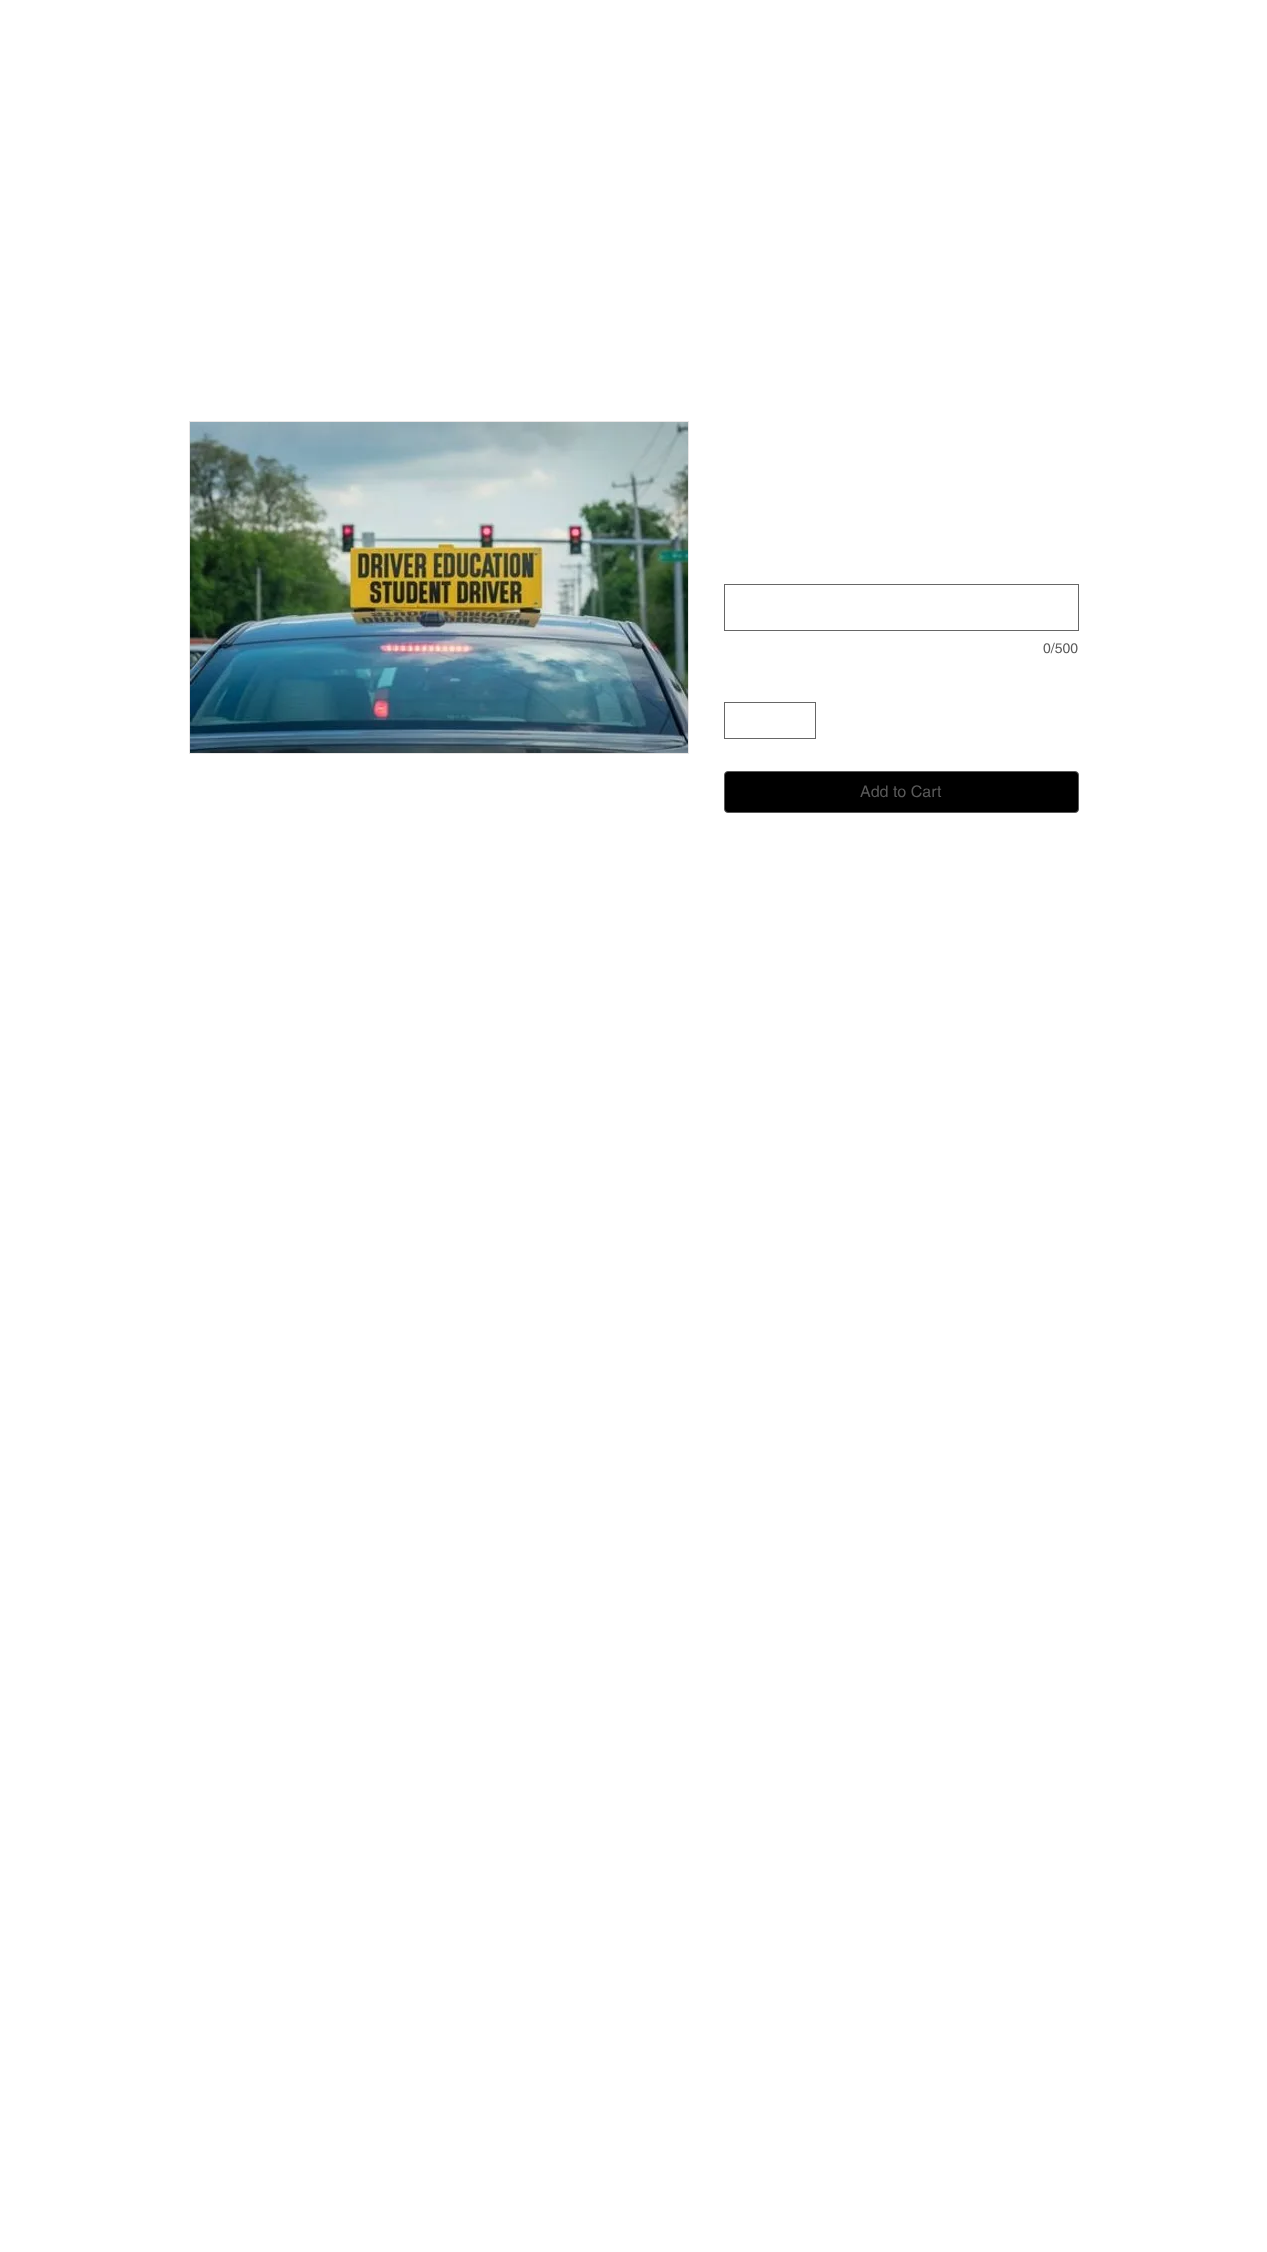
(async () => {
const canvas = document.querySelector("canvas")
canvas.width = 1267
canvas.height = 2252
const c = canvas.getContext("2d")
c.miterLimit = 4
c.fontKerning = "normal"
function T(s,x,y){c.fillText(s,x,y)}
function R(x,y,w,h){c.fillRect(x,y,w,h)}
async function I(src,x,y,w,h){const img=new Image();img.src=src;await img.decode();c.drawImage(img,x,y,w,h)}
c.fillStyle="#fff"
R(0,0,1267,2252)
c.strokeStyle="#e8e6e6"
c.strokeRect(189.5,421.5,499,332)
await I("1.png",190,422,498,331)
c.strokeStyle="#666"
c.strokeRect(724.5,584.5,354,46)
c.font="14px helvetica"
c.fillStyle="#595959"
T("0/500",1043,653)
c.strokeRect(724.5,702.5,91,36)
c.fillStyle="#000"
c.beginPath()
c.roundRect(724.5,771.5,354,41,3.5)
c.fill()
c.strokeStyle="#595959"
c.stroke()
c.font="16px helvetica"
c.fillStyle="#595959"
T("Add to Cart",860,797)
})()
